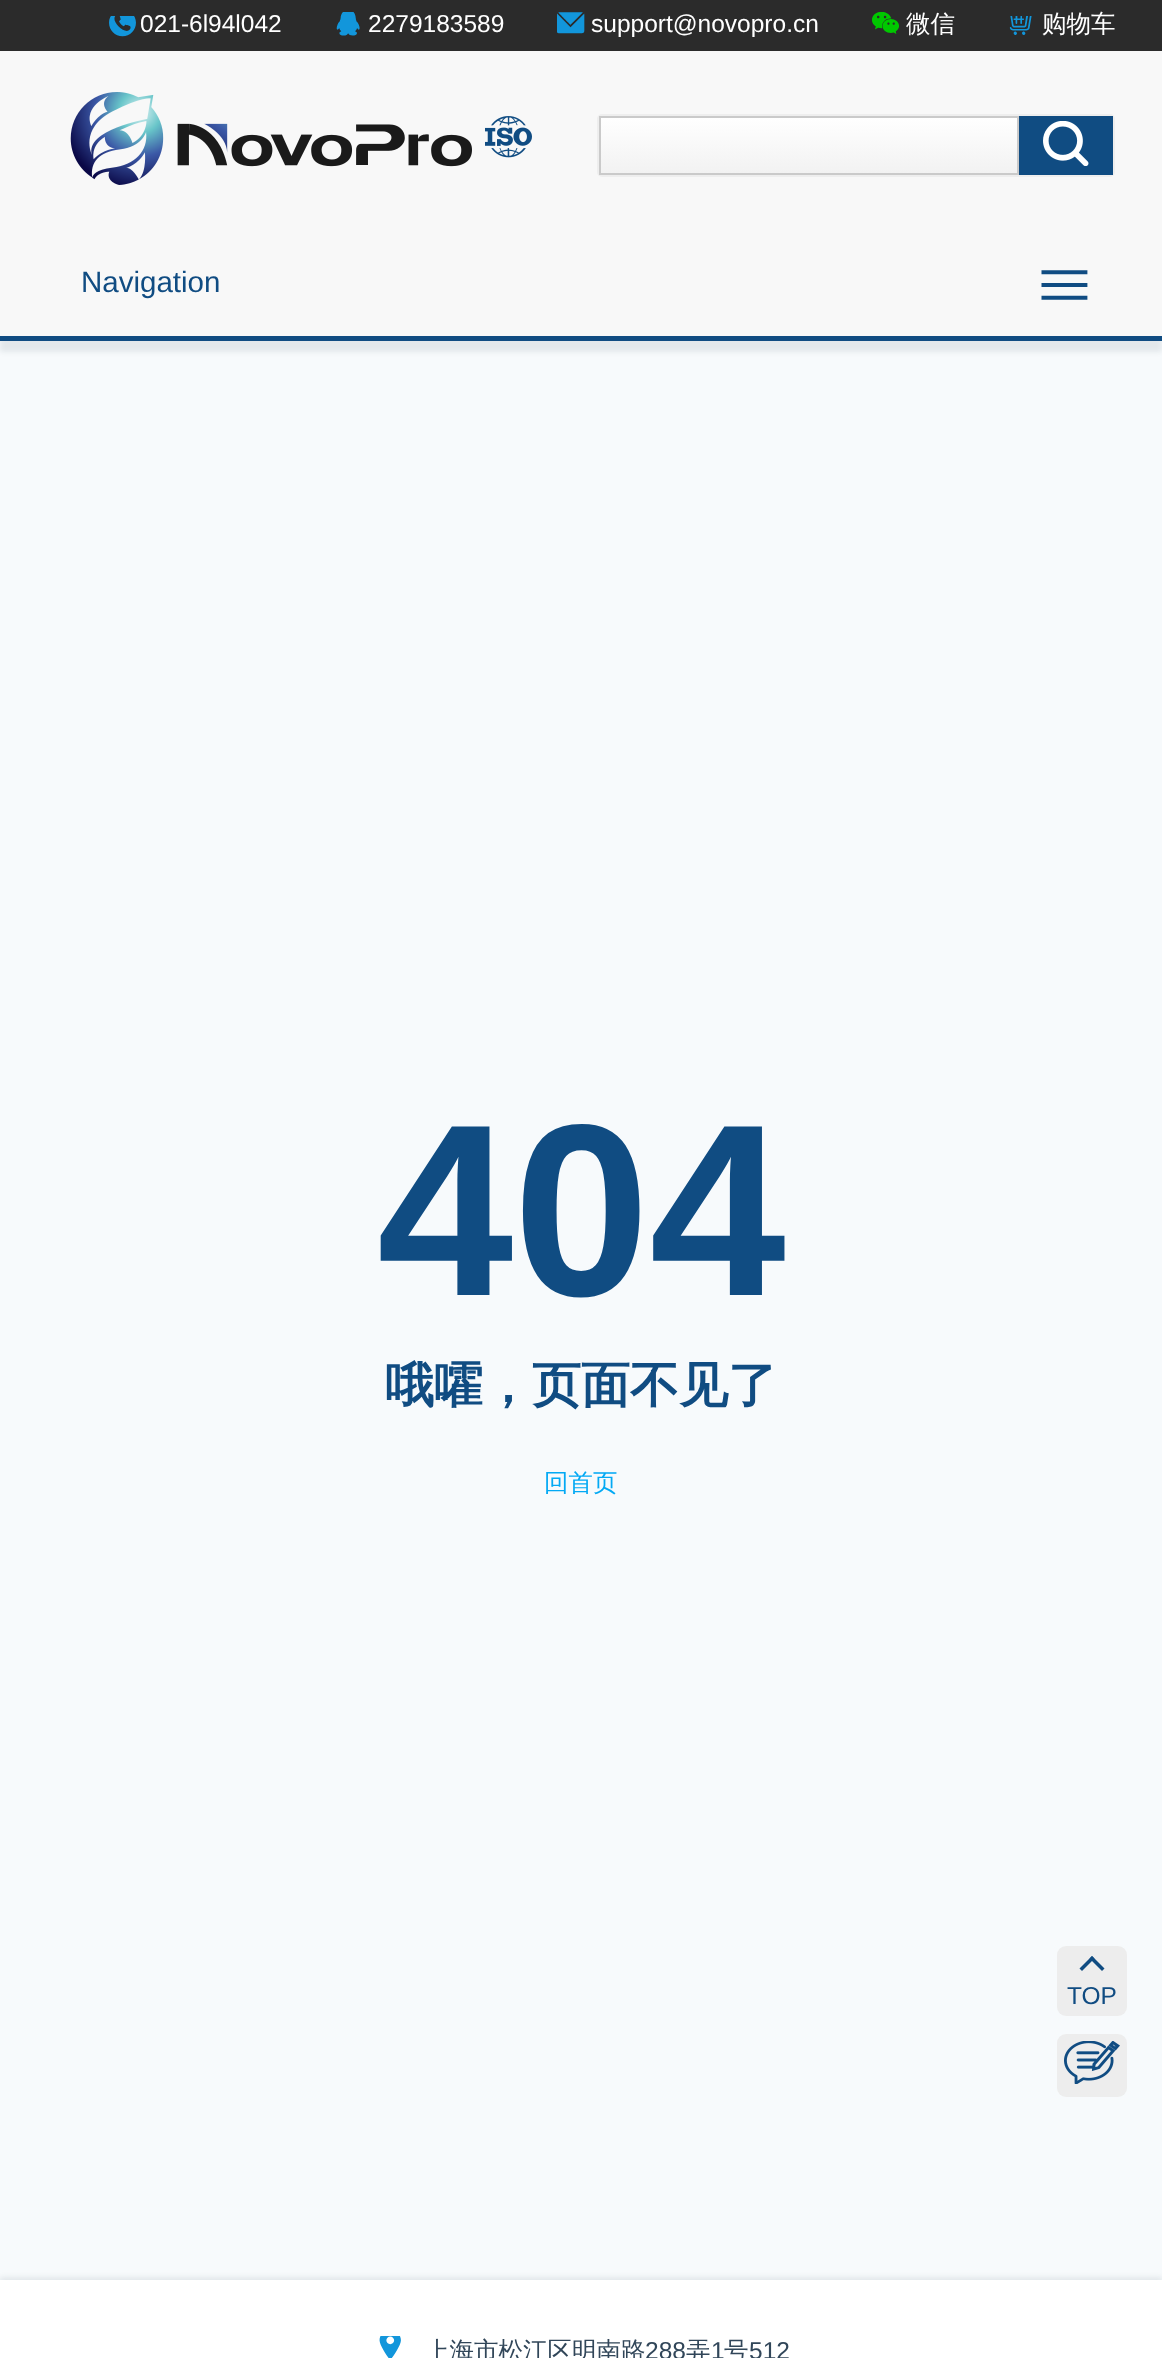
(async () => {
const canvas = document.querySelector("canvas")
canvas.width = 1162
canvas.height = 2358
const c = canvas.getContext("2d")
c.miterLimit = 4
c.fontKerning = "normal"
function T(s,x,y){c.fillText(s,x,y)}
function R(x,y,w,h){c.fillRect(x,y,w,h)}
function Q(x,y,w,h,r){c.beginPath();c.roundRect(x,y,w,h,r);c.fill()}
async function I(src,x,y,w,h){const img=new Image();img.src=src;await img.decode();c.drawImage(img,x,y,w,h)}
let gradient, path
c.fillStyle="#f7fafc"
R(0,0,1162,2358)
c.fillStyle="#00152914"
c.filter="blur(2.5px)"
c.beginPath()
c.rect(0,11,1162,341)
c.fill()
c.filter="none"
c.fillStyle="#f8f8f8"
R(0,51,1162,285)
c.fillStyle="#104c82"
R(0,336,1162,5)
c.fillStyle="#2b2b2b"
R(0,0,1162,51)
await I("1.png",109,16,27,21)
c.font="24.5px Liberation Sans"
c.fillStyle="#fff"
T("021-6l94l042",140,32)
await I("2.png",336,12,24,24)
T("2279183589",368,32)
await I("3.png",557,12,28,22)
T("support@novopro.cn",591,32)
await I("4.png",872,12,27,22)
c.font="500 24.5px WenQuanYi Zen Hei"
T("微信",906,32)
await I("5.png",1009,16,23,19)
T("购物车",1042,32)
await I("6.png",70,92,402,93)
await I("7.png",485,116,47,42)
c.beginPath()
c.roundRect(598,115,516,61,4)
c.strokeStyle="#eee"
c.lineWidth=2
c.stroke()
gradient = c.createLinearGradient(600,117,600,173)
gradient.addColorStop(0,"#fff")
gradient.addColorStop(1,"#f2f2f2")
c.fillStyle = gradient
R(601,118,416,55)
c.strokeStyle="#cacaca"
c.strokeRect(600,117,418,57)
c.fillStyle="#104c82"
R(1019,116,94,59)
await I("8.png",1043,121,46,45)
c.font="29.5px Liberation Sans"
T("Navigation",81,292)
c.font="49px Liberation Sans"
c.save()
c.translate(1077,304)
c.rotate(-90 * Math.PI / 180)
c.fillText("|||",0,0)
c.restore()
c.font="bold 245px Liberation Sans"
T("404",377,1295)
c.font="bold 49px WenQuanYi Zen Hei"
T("哦嚯，页面不见了",385,1402)
c.font="500 24.5px WenQuanYi Zen Hei"
c.fillStyle="#03a9f4"
T("回首页",544,1491)
c.fillStyle="#00152914"
c.filter="blur(2.5px)"
c.beginPath()
c.rect(0,2277,1162,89)
c.fill()
c.filter="none"
c.fillStyle="#fff"
R(0,2280,1162,78)
c.fillStyle="#ededed"
Q(1057,1946,70,70,9)
c.fillStyle="#104c82"
path = new Path2D("M1079.5 1968.5l12.5-12.5l2.5 2.5l-12.5 12.5z")
c.fill(path)
path = new Path2D("M1089.5 1958.5l2.5-2.5l12.5 12.5l-2.5 2.5z")
c.fill(path)
c.font="24.5px Liberation Sans"
T("TOP",1067,2004)
c.fillStyle="#ededed"
Q(1057,2034,70,63,9)
await I("9.png",1064,2041,56,43)
await I("10.png",379,2336,22,22)
c.font="500 24.5px WenQuanYi Zen Hei"
c.fillStyle="#314659"
T("上海市松江区明南路",425,2359)
c.font="24.5px Liberation Sans"
T("288",645,2359)
c.font="500 24.5px WenQuanYi Zen Hei"
T("弄",686,2359)
c.font="24.5px Liberation Sans"
T("1",711,2359)
c.font="500 24.5px WenQuanYi Zen Hei"
T("号",724,2359)
c.font="24.5px Liberation Sans"
T("512",749,2359)
})()
